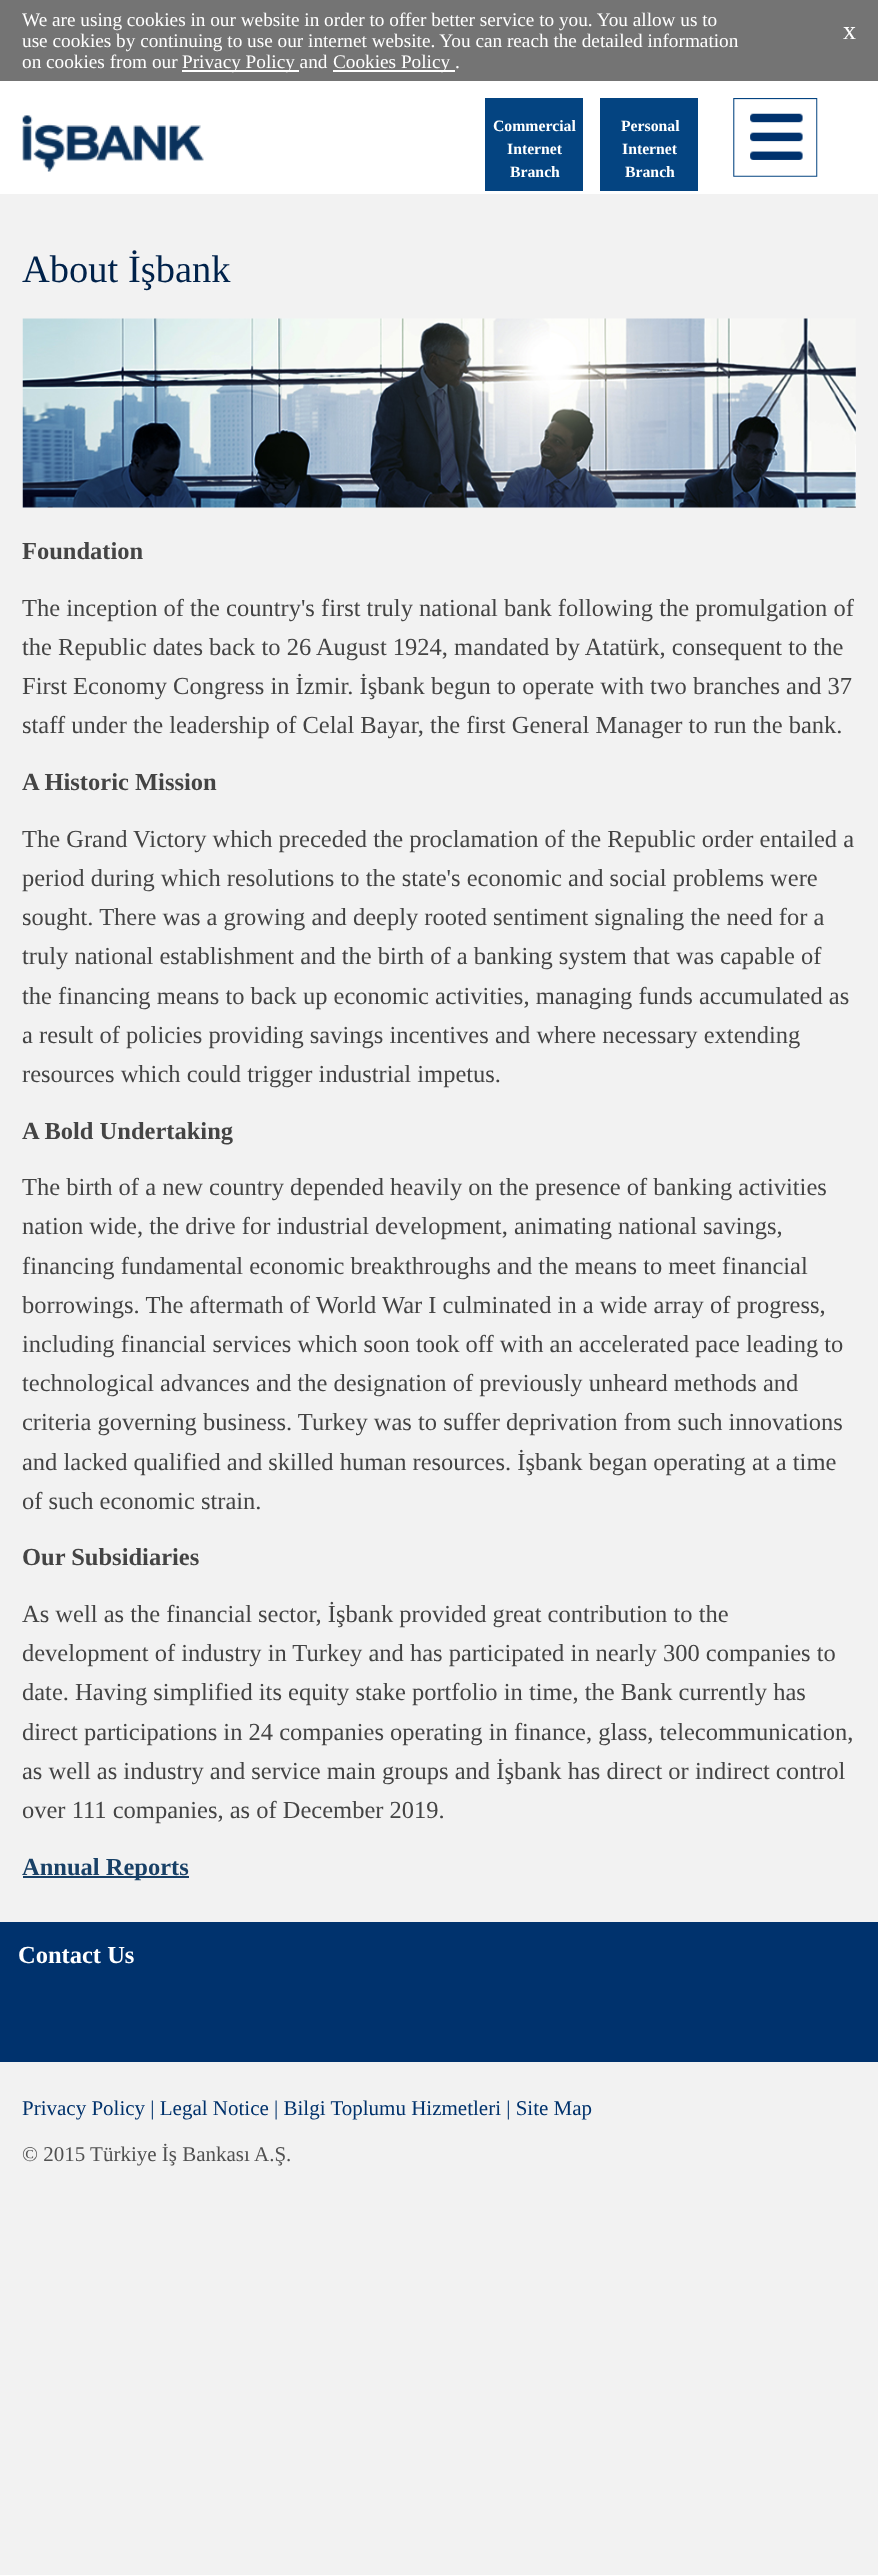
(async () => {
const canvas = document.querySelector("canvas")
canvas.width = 878
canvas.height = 2575
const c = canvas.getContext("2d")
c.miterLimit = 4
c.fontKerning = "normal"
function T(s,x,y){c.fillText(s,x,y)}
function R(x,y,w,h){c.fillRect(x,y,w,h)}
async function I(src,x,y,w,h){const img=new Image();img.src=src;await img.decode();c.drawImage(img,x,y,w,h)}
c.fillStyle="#f2f2f2"
R(0,0,878,2575)
c.fillStyle="#747474"
R(0,0,878,81)
c.font="19.25px Liberation Serif"
c.fillStyle="#fff"
T("We are using cookies in our website in order to offer better service to you. You allow us to",22,26)
T("use cookies by continuing to use our internet website. You can reach the detailed information",22,47)
T("on cookies from our",22,68)
R(182,70,117,2)
T("Privacy Policy and",182,68)
R(333,70,122,2)
T("Cookies Policy .",333,68)
c.font="26px Liberation Serif"
T("x",843,39)
R(0,81,878,113)
await I("1.png",22,115,182,57)
c.fillStyle="#044481"
R(485,98,98,93)
c.font="bold 15.75px Liberation Serif"
c.fillStyle="#fff"
T("Commercial",493,131)
T("Internet",507,154)
T("Branch",510,177)
c.fillStyle="#044481"
R(600,98,98,93)
c.fillStyle="#fff"
T("Personal",621,131)
T("Internet",622,154)
T("Branch",625,177)
await I("2.png",733,98,85,79)
c.font="38.5px Liberation Serif"
c.fillStyle="#00224a"
T("About İşbank",22,282)
await I("3.png",22,318,834,190)
c.font="bold 24.5px Liberation Serif"
c.fillStyle="#444"
T("Foundation",22,559)
c.font="24.5px Liberation Serif"
T("The inception of the country's first truly national bank following the promulgation of",22,616)
T("the Republic dates back to 26 August 1924, mandated by Atatürk, consequent to the",22,655)
T("First Economy Congress in İzmir. İşbank begun to operate with two branches and 37",22,694)
T("staff under the leadership of Celal Bayar, the first General Manager to run the bank.",22,733)
c.font="bold 24.5px Liberation Serif"
T("A Historic Mission",22,790)
c.font="24.5px Liberation Serif"
T("The Grand Victory which preceded the proclamation of the Republic order entailed a",22,847)
T("period during which resolutions to the state's economic and social problems were",22,886)
T("sought. There was a growing and deeply rooted sentiment signaling the need for a",22,925)
T("truly national establishment and the birth of a banking system that was capable of",22,964)
T("the financing means to back up economic activities, managing funds accumulated as",22,1004)
T("a result of policies providing savings incentives and where necessary extending",22,1043)
T("resources which could trigger industrial impetus.",22,1082)
c.font="bold 24.5px Liberation Serif"
T("A Bold Undertaking",22,1139)
c.font="24.5px Liberation Serif"
T("The birth of a new country depended heavily on the presence of banking activities",22,1195)
T("nation wide, the drive for industrial development, animating national savings,",22,1234)
T("financing fundamental economic breakthroughs and the means to meet financial",22,1274)
T("borrowings. The aftermath of World War I culminated in a wide array of progress,",22,1313)
T("including financial services which soon took off with an accelerated pace leading to",22,1352)
T("technological advances and the designation of previously unheard methods and",22,1391)
T("criteria governing business. Turkey was to suffer deprivation from such innovations",22,1430)
T("and lacked qualified and skilled human resources. İşbank began operating at a time",22,1470)
T("of such economic strain.",22,1509)
c.font="bold 24.5px Liberation Serif"
T("Our Subsidiaries",22,1565)
c.font="24.5px Liberation Serif"
T("As well as the financial sector, İşbank provided great contribution to the",22,1622)
T("development of industry in Turkey and has participated in nearly 300 companies to",22,1661)
T("date. Having simplified its equity stake portfolio in time, the Bank currently has",22,1700)
T("direct participations in 24 companies operating in finance, glass, telecommunication,",22,1740)
T("as well as industry and service main groups and İşbank has direct or indirect control",22,1779)
T("over 111 companies, as of December 2019.",22,1818)
c.fillStyle="#184066"
R(23,1876,166,2)
c.font="bold 24.5px Liberation Serif"
T("Annual Reports",22,1875)
c.fillStyle="#00326d"
R(0,1922,878,140)
c.fillStyle="#fff"
T("Contact Us",18,1963)
c.font="21px Liberation Serif"
c.fillStyle="#00326c"
T("Privacy Policy | Legal Notice | Bilgi Toplumu Hizmetleri | Site Map",22,2115)
c.fillStyle="#515151"
T("© 2015 Türkiye İş Bankası A.Ş.",22,2161)
})()
